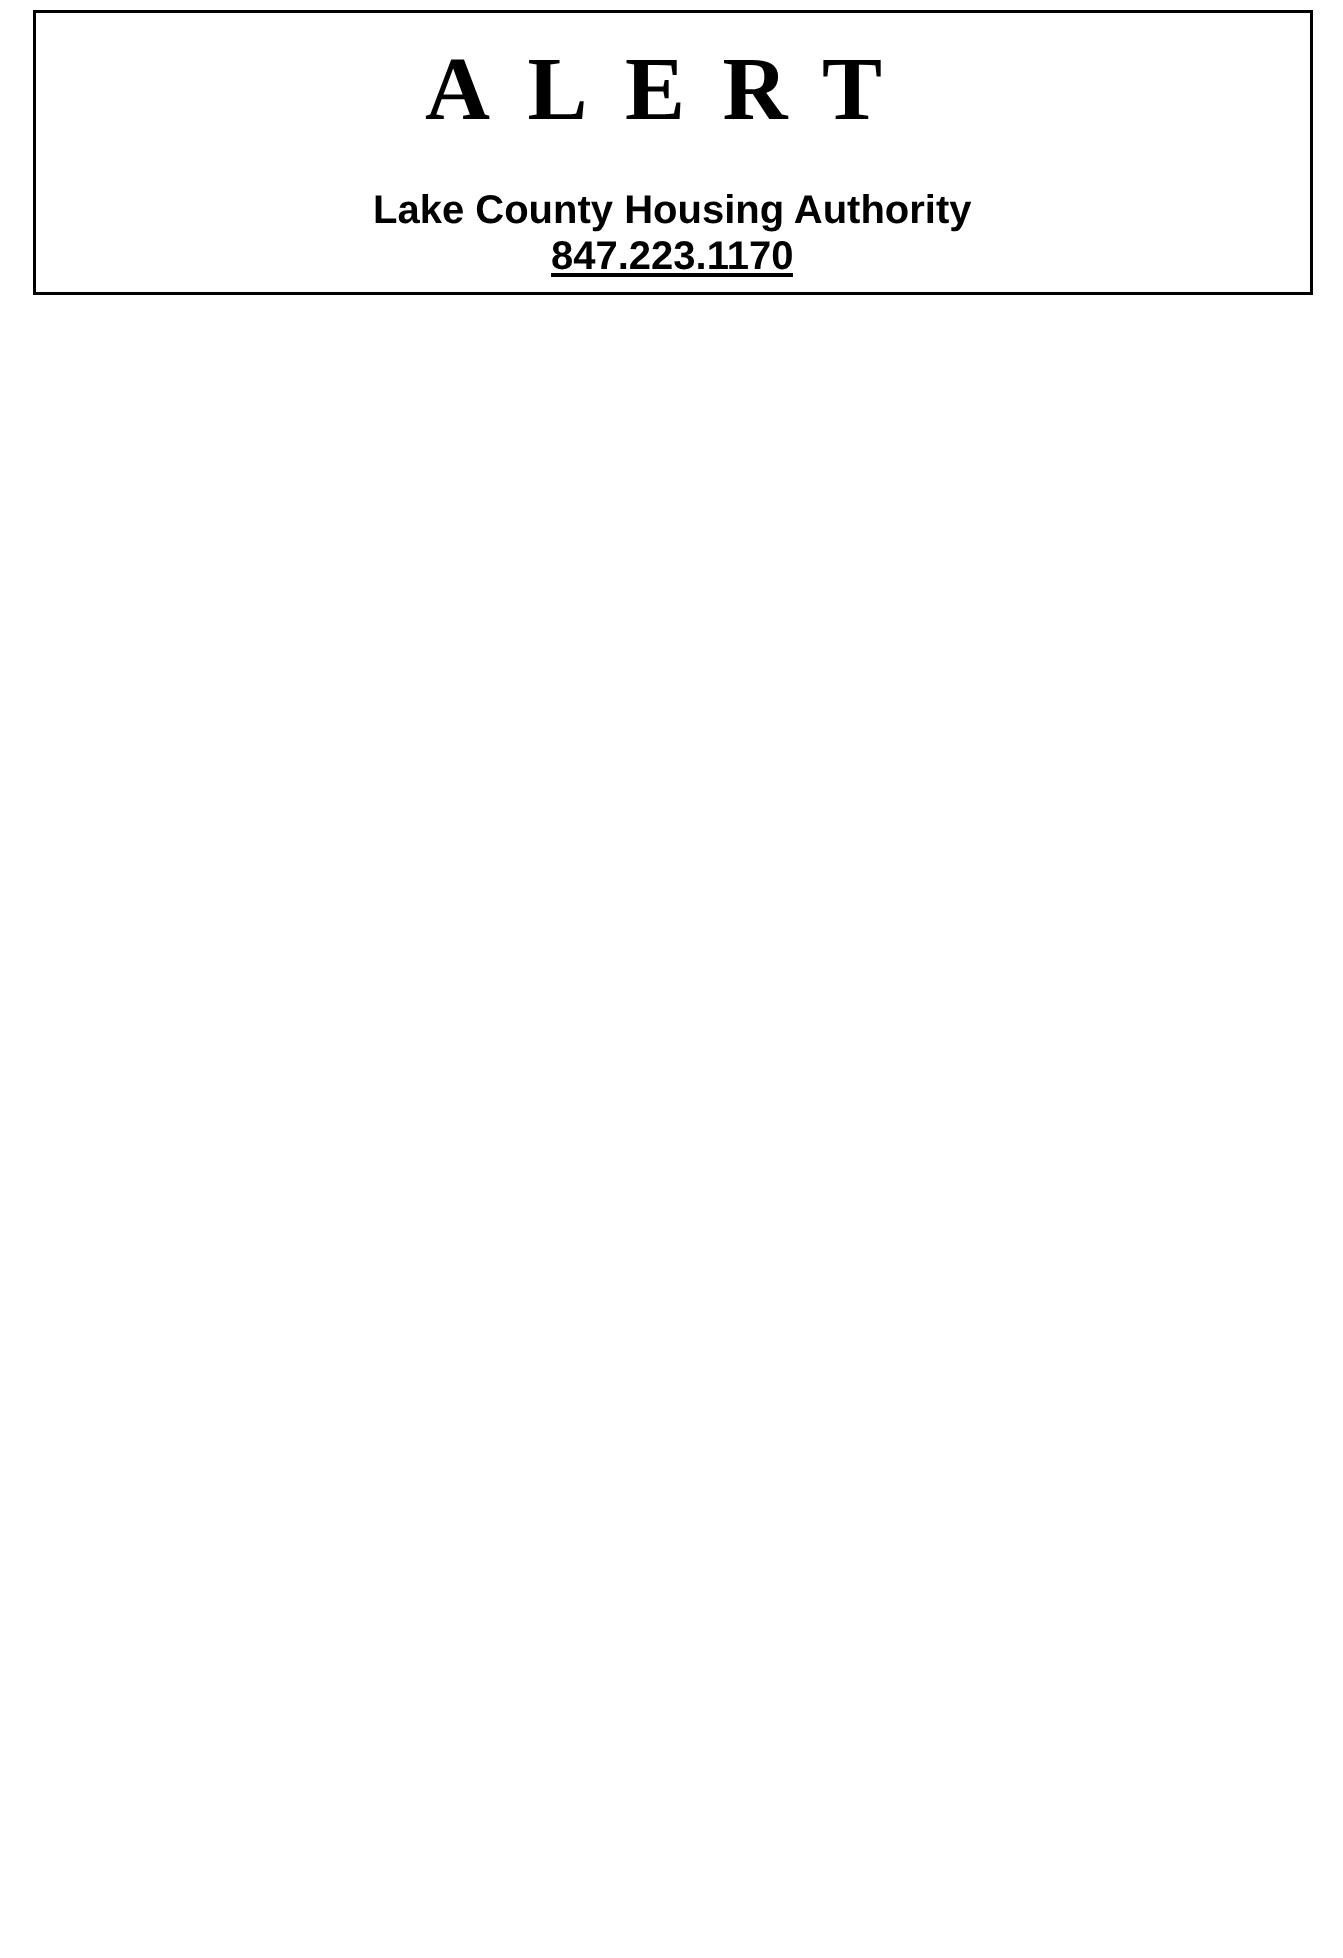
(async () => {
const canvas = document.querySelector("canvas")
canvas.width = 1343
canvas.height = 1958
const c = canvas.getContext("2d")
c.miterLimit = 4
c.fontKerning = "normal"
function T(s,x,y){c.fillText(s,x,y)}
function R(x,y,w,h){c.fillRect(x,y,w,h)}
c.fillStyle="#fff"
R(0,0,1343,1958)
c.strokeStyle="#000"
c.lineWidth=3
c.strokeRect(34.5,11.5,1277,282)
c.letterSpacing="37.5px"
c.font="bold 90px Liberation Serif"
c.fillStyle="#000"
T("ALERT",425,119)
c.letterSpacing="0px"
c.font="bold 40px Liberation Sans"
T("Lake County Housing Authority",373,223)
T("847.223.1170",551,269)
R(551,273,242,4)
})()
